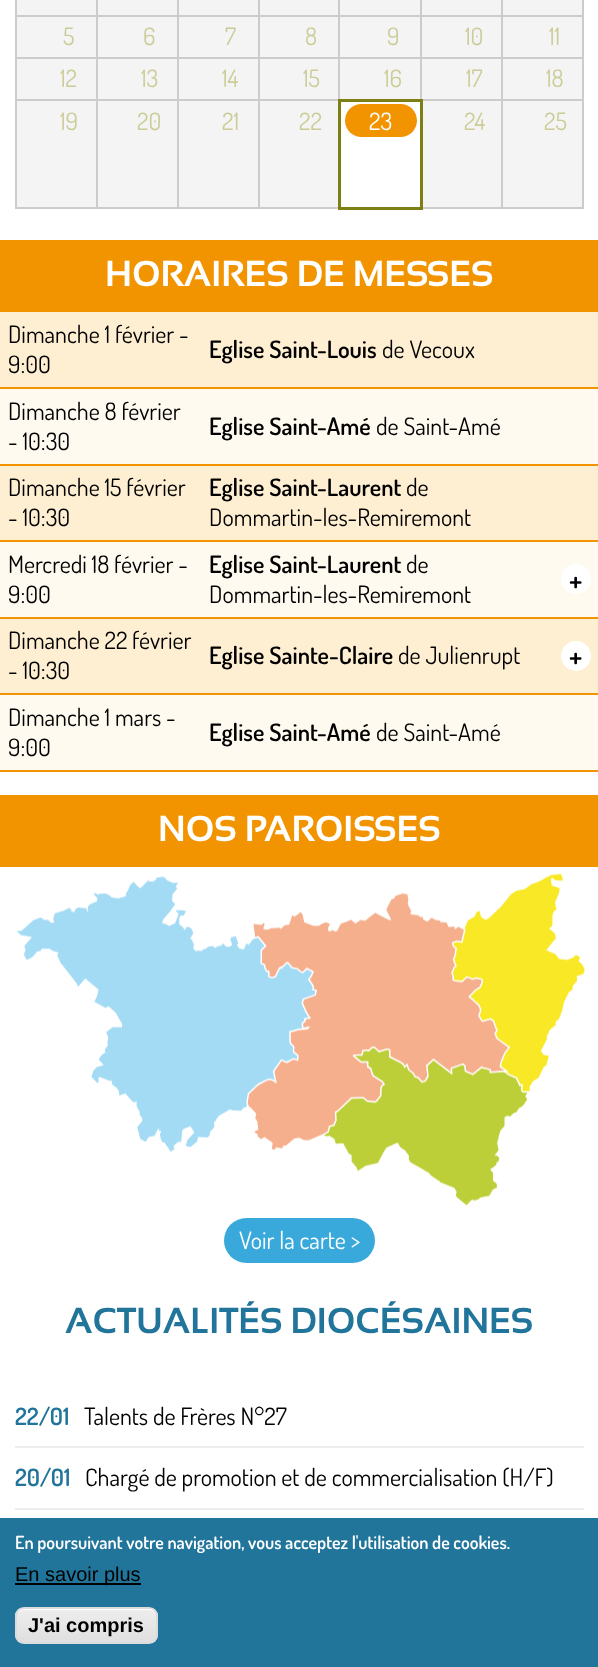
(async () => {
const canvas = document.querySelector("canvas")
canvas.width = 598
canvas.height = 1667
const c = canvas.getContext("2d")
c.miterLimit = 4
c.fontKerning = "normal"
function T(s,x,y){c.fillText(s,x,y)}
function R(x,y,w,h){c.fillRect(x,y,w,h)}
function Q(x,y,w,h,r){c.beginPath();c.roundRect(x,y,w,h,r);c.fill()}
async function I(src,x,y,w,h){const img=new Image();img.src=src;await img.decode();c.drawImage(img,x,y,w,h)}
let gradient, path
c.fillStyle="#fff"
R(0,0,598,1667)
c.fillStyle="#f4f4f4"
R(17,0,79,15)
R(98,0,79,12)
R(179,0,79,12)
R(260,0,78,12)
R(340,0,80,12)
R(422,0,79,12)
R(503,0,79,12)
R(96,12,488,3)
c.fillStyle="#ccc"
R(501,15,83,2)
c.fillStyle="#f4f4f4"
R(96,54,488,3)
c.fillStyle="#ccc"
R(501,57,83,2)
c.fillStyle="#f4f4f4"
R(96,96,488,3)
c.fillStyle="#ccc"
R(501,99,83,2)
R(582,138,2,71)
R(501,207,83,2)
R(501,138,2,71)
R(501,99,2,41)
R(420,99,83,2)
R(501,95,2,6)
R(501,57,2,39)
R(420,57,83,2)
R(501,53,2,6)
R(501,15,2,39)
R(420,15,83,2)
R(420,95,2,6)
R(420,57,2,39)
R(338,57,84,2)
R(420,53,2,6)
R(420,15,2,39)
R(338,15,84,2)
R(258,99,81,2)
R(338,95,2,6)
R(338,57,2,39)
R(258,57,81,2)
R(338,53,2,6)
R(338,15,2,39)
R(258,15,81,2)
R(258,207,81,2)
R(258,138,2,71)
R(258,99,2,41)
R(177,99,83,2)
R(258,95,2,6)
R(258,57,2,39)
R(177,57,83,2)
R(258,53,2,6)
R(258,15,2,39)
R(177,15,83,2)
R(177,207,83,2)
R(177,138,2,71)
R(177,99,2,41)
R(96,99,83,2)
R(177,95,2,6)
R(177,57,2,39)
R(96,57,83,2)
R(177,53,2,6)
R(177,15,2,39)
R(96,15,83,2)
R(96,207,83,2)
R(96,138,2,71)
R(96,99,2,41)
R(15,99,83,2)
R(96,95,2,6)
R(96,57,2,39)
R(15,57,83,2)
R(96,53,2,6)
R(96,15,2,39)
R(15,15,83,2)
R(96,0,2,17)
R(177,0,2,17)
R(258,0,2,17)
R(338,0,2,17)
R(420,0,2,17)
R(501,0,2,17)
c.fillStyle="#f4f4f4"
R(17,17,79,40)
c.fillStyle="#ccc"
R(15,207,83,2)
R(15,138,2,71)
R(15,95,2,45)
R(15,53,2,43)
R(15,0,2,54)
c.font="24px Dosis"
c.fillStyle="#cc9"
T("5",63,45)
c.fillStyle="#f4f4f4"
R(98,17,79,37)
c.fillStyle="#cc9"
T("6",143,45)
c.fillStyle="#f4f4f4"
R(179,17,79,37)
c.fillStyle="#cc9"
T("7",225,45)
c.fillStyle="#f4f4f4"
R(260,17,78,37)
c.fillStyle="#cc9"
T("8",305,45)
c.fillStyle="#f4f4f4"
R(340,17,80,37)
c.fillStyle="#cc9"
T("9",387,45)
c.fillStyle="#f4f4f4"
R(422,17,79,37)
c.fillStyle="#cc9"
T("10",465,45)
c.fillStyle="#f4f4f4"
R(503,17,79,37)
c.fillStyle="#ccc"
R(582,95,2,45)
R(582,53,2,43)
R(582,0,2,54)
c.fillStyle="#cc9"
T("11",549,45)
c.fillStyle="#f4f4f4"
R(17,59,79,40)
c.fillStyle="#cc9"
T("12",60,87)
c.fillStyle="#f4f4f4"
R(98,59,79,37)
c.fillStyle="#cc9"
T("13",141,87)
c.fillStyle="#f4f4f4"
R(179,59,79,37)
c.fillStyle="#cc9"
T("14",222,87)
c.fillStyle="#f4f4f4"
R(260,59,78,37)
c.fillStyle="#cc9"
T("15",303,87)
c.fillStyle="#f4f4f4"
R(340,59,80,37)
c.fillStyle="#cc9"
T("16",384,87)
c.fillStyle="#f4f4f4"
R(422,59,79,37)
c.fillStyle="#cc9"
T("17",466,87)
c.fillStyle="#f4f4f4"
R(503,59,79,37)
c.fillStyle="#cc9"
T("18",546,87)
c.fillStyle="#f4f4f4"
R(17,101,79,106)
c.fillStyle="#cc9"
T("19",60,130)
c.fillStyle="#f4f4f4"
R(98,101,79,106)
c.fillStyle="#cc9"
T("20",137,130)
c.fillStyle="#f4f4f4"
R(179,101,79,106)
c.fillStyle="#cc9"
T("21",222,130)
c.fillStyle="#f4f4f4"
R(260,101,78,106)
c.fillStyle="#cc9"
T("22",299,130)
c.fillStyle="#7c7f12"
R(338,99,85,3)
c.fillStyle="#ccc"
R(420,207,83,2)
c.fillStyle="#7c7f12"
R(420,138,3,72)
R(420,99,3,42)
R(338,207,85,3)
R(338,138,3,72)
R(338,99,3,42)
c.fillStyle="#f29400"
Q(345,104,72,33,16.5)
c.fillStyle="#fff"
T("23",369,130)
c.fillStyle="#f4f4f4"
R(423,101,78,106)
c.fillStyle="#cc9"
T("24",464,130)
c.fillStyle="#f4f4f4"
R(503,101,79,106)
c.fillStyle="#cc9"
T("25",544,130)
c.fillStyle="#f29400"
R(0,240,598,72)
c.font="bold 36px Sansation"
c.fillStyle="#fff"
T("HORAIRES DE MESSES",105,286)
c.fillStyle="#ffefd2"
R(0,312,598,75)
c.fillStyle="#f29400"
R(0,387,598,2)
c.font="24px Dosis"
c.fillStyle="#000"
T("Dimanche 1 février -",8,343)
T("9:00",8,373)
c.font="600 24px Dosis"
T("Eglise Saint-Louis",209,358)
c.font="24px Dosis"
T("de Vecoux",382,358)
c.fillStyle="#fffaf0"
R(0,389,598,75)
c.fillStyle="#f29400"
R(0,464,598,2)
c.fillStyle="#000"
T("Dimanche 8 février",8,420)
T("- 10:30",8,450)
c.font="600 24px Dosis"
T("Eglise Saint-Amé",209,435)
c.font="24px Dosis"
T("de Saint-Amé",376,435)
c.fillStyle="#ffefd2"
R(0,466,598,74)
c.fillStyle="#f29400"
R(0,540,598,2)
c.fillStyle="#000"
T("Dimanche 15 février",8,496)
T("- 10:30",8,526)
c.font="600 24px Dosis"
T("Eglise Saint-Laurent",209,496)
c.font="24px Dosis"
T("de",406,496)
T("Dommartin-les-Remiremont",209,526)
c.fillStyle="#fffaf0"
R(0,542,598,75)
c.fillStyle="#f29400"
R(0,617,598,2)
c.fillStyle="#000"
T("Mercredi 18 février -",8,573)
T("9:00",8,603)
c.font="600 24px Dosis"
T("Eglise Saint-Laurent",209,573)
c.font="24px Dosis"
T("de",406,573)
T("Dommartin-les-Remiremont",209,603)
c.fillStyle="#fff"
c.beginPath()
c.arc(576,579,15,0,7)
c.fill()
c.font="600 30px Dosis"
c.fillStyle="#000"
T("+",569,591)
c.fillStyle="#ffefd2"
R(0,619,598,74)
c.fillStyle="#f29400"
R(0,693,598,2)
c.font="24px Dosis"
c.fillStyle="#000"
T("Dimanche 22 février",8,649)
T("- 10:30",8,679)
c.font="600 24px Dosis"
T("Eglise Sainte-Claire",209,664)
c.font="24px Dosis"
T("de Julienrupt",398,664)
c.fillStyle="#fff"
c.beginPath()
c.arc(576,656,15,0,7)
c.fill()
c.font="600 30px Dosis"
c.fillStyle="#000"
T("+",569,667)
c.fillStyle="#fffaf0"
R(0,695,598,75)
c.fillStyle="#f29400"
R(0,770,598,2)
c.font="24px Dosis"
c.fillStyle="#000"
T("Dimanche 1 mars -",8,726)
T("9:00",8,756)
c.font="600 24px Dosis"
T("Eglise Saint-Amé",209,741)
c.font="24px Dosis"
T("de Saint-Amé",376,741)
c.fillStyle="#f29400"
R(0,795,598,72)
c.font="bold 36px Sansation"
c.fillStyle="#fff"
T("NOS PAROISSES",158,841)
await I("1.png",16,873,569,333)
c.fillStyle="#39a9dc"
Q(224,1218,151,45,22.5)
c.font="24px Dosis"
c.fillStyle="#fff"
T("Voir la carte >",239,1249)
c.font="bold 36px Sansation"
c.fillStyle="#21759b"
T("ACTUALITÉS DIOCÉSAINES",65,1333)
c.fillStyle="#ededed"
R(15,1446,569,2)
c.font="600 24px Dosis"
c.fillStyle="#21759b"
T("22/01",15,1425)
c.font="24px Dosis"
c.fillStyle="#000"
T("Talents de Frères N°27",84,1425)
c.fillStyle="#ededed"
R(15,1508,569,2)
c.font="600 24px Dosis"
c.fillStyle="#21759b"
T("20/01",15,1486)
c.font="24px Dosis"
c.fillStyle="#000"
T("Chargé de promotion et de commercialisation (H/F)",85,1486)
c.fillStyle="#21759b"
R(0,1518,598,149)
c.font="600 18px Dosis"
c.fillStyle="#fff"
T("En poursuivant votre navigation, vous acceptez l'utilisation de cookies.",15,1549)
c.fillStyle="#000"
R(15,1583,126,2)
c.font="20px Liberation Sans"
T("En savoir plus",15,1581)
c.save()
c.beginPath()
c.roundRect(15,1607,143,37,9)
c.clip()
gradient = c.createLinearGradient(86,1608,86,1643)
gradient.addColorStop(.05,"#ededed")
gradient.addColorStop(1,"#dfdfdf")
c.fillStyle = gradient
R(15,1608,143,35)
c.restore()
c.fillStyle="#fff"
path = new Path2D("M24 1610h124c5 0 8 3 8 7v-1c0-4-4-8-8-8h-123c-3 0-6 2-7 5c1-2 4-3 6-3z")
c.fill(path)
c.beginPath()
c.roundRect(16,1608,141,35,8)
c.strokeStyle="#dcdcdc"
c.lineWidth=2
c.stroke()
c.font="bold 20px Liberation Sans"
c.fillStyle="#000"
T("J'ai compris",28,1632)
})()
